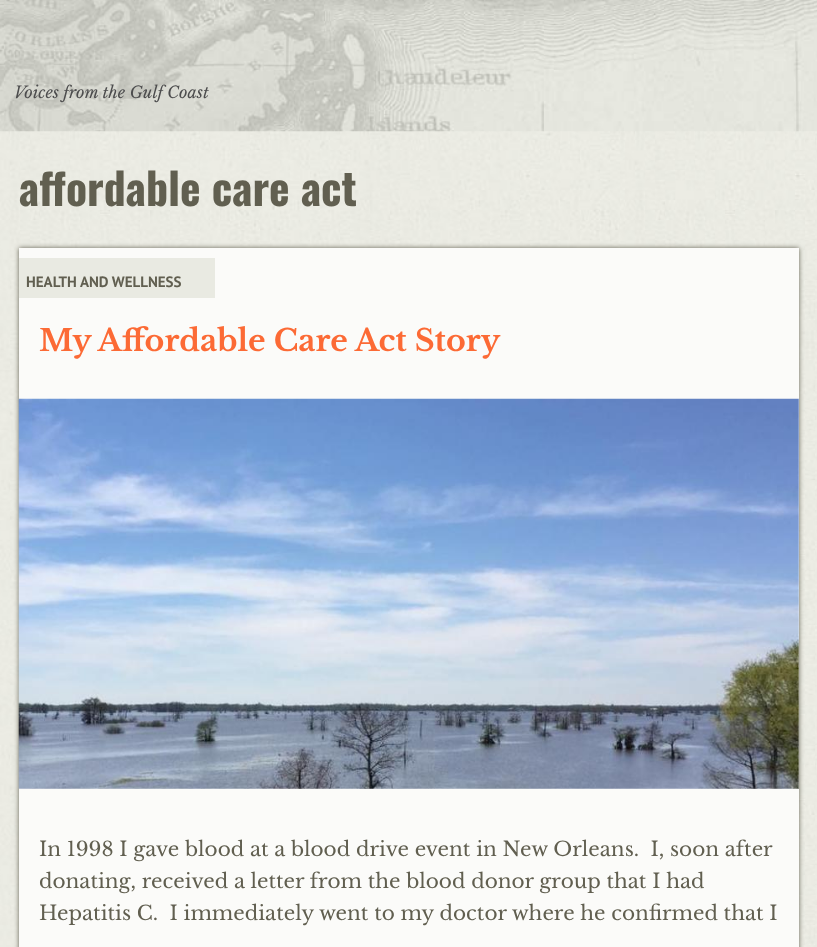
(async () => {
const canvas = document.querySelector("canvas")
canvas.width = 817
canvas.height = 947
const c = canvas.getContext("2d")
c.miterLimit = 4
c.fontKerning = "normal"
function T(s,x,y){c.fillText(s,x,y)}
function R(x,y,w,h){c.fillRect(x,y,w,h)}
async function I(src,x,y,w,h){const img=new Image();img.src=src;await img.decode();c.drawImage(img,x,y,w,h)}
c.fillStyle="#fff"
R(0,0,817,947)
await I("1.png",0,131,817,816)
await I("2.png",0,0,817,132)
c.font="italic 16.25px Libre Baskerville"
c.fillStyle="#4c4c4d"
T("Voices from the Gulf Coast",14,98)
c.font="bold 43.75px Oswald"
c.fillStyle="#615f50"
T("affordable care act",19,206)
c.filter="blur(2.5px)"
c.beginPath()
c.rect(19,248,780,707)
c.fill()
c.filter="none"
c.fillStyle="#fbfbf9"
R(19,248,780,699)
c.fillStyle="#e9eae2"
R(19,258,196,40)
c.font="bold 15px PT Sans"
c.fillStyle="#615f50"
T("HEALTH AND WELLNESS",26,287)
c.font="bold 30px Libre Baskerville"
c.fillStyle="#fc6a35"
T("My Affordable Care Act Story",39,351)
await I("3.png",18,398,781,391)
c.font="20px Libre Baskerville"
c.fillStyle="#615f50"
T("In 1998 I gave blood at a blood drive event in New Orleans.  I, soon after",39,856)
T("donating, received a letter from the blood donor group that I had",39,888)
T("Hepatitis C.  I immediately went to my doctor where he confirmed that I",39,920)
})()
